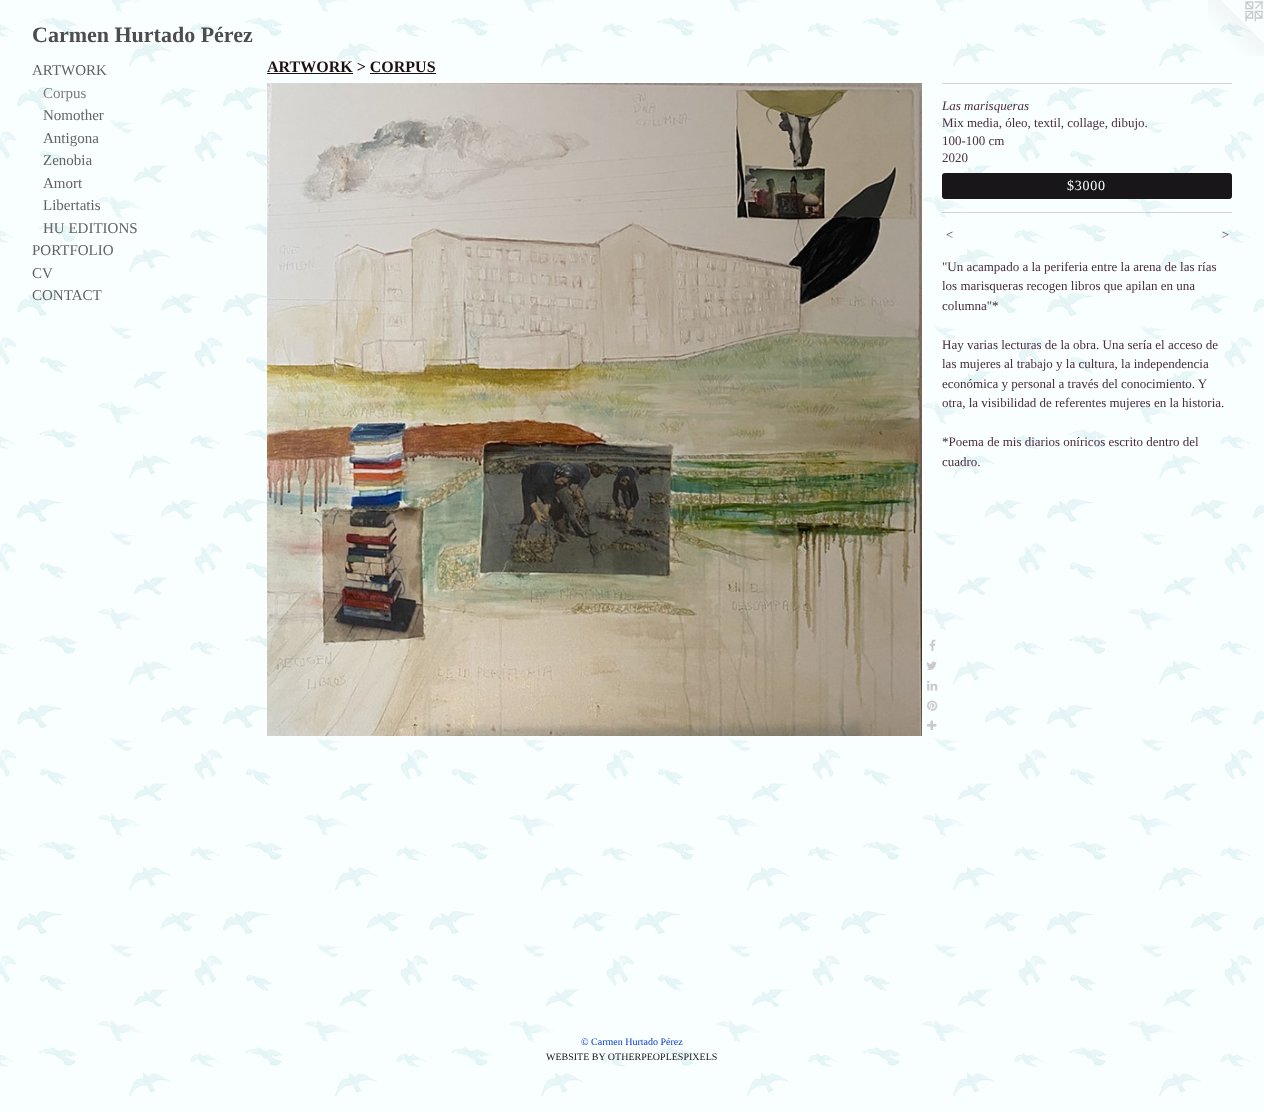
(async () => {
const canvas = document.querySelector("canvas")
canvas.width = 1264
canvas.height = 1112
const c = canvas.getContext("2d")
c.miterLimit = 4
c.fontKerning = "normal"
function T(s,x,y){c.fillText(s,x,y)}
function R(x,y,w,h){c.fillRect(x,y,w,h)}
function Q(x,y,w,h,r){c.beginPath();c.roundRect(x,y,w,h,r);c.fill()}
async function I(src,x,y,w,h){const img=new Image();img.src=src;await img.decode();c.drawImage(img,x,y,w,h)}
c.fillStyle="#f9fefe"
R(0,0,1264,1112)
await I("1.png",0,0,1264,1096)
c.font="bold 22px Liberation Serif"
c.fillStyle="#4d4d4d"
T("Carmen Hurtado Pérez",32,42)
await I("2.png",1208,0,56,56)
c.font="15px Liberation Serif"
c.fillStyle="#636363"
T("ARTWORK",32,75)
c.fillStyle="#7d7d7d"
T("Corpus",43,98)
c.fillStyle="#636363"
T("Nomother",43,120)
T("Antigona",43,143)
T("Zenobia",43,165)
T("Amort",43,188)
T("Libertatis",43,210)
T("HU EDITIONS",43,233)
T("PORTFOLIO",32,255)
T("CV",32,278)
T("CONTACT",32,300)
c.font="bold 16px Liberation Serif"
c.fillStyle="#1f0f0f"
T("ARTWORK > CORPUS",267,72)
R(267,73,86,1)
R(370,73,66,1)
await I("3.png",267,83,655,653)
await I("4.png",929,639,7,12)
await I("5.png",926,661,11,9)
await I("6.png",927,680,11,11)
await I("7.png",927,700,11,11)
await I("8.png",927,720,10,10)
c.fillStyle="#d6d4d8"
R(942,83,290,1)
c.font="italic 13px Liberation Serif"
c.fillStyle="#482d40"
T("Las marisqueras",942,110)
c.font="13px Liberation Serif"
T("Mix media, óleo, textil, collage, dibujo.",942,127)
T("100-100 cm",942,145)
T("2020",942,162)
c.fillStyle="#181618"
Q(942,173,290,26,3)
c.letterSpacing="0.75px"
c.font="14px Liberation Serif"
c.fillStyle="#f9fefe"
T("$3000",1067,190)
c.fillStyle="#482d4033"
R(942,212,290,1)
c.letterSpacing="1px"
c.font="italic 13px Liberation Serif"
c.fillStyle="#482d40"
T("<",945,239)
T(">",1221,239)
c.letterSpacing="0px"
c.font="13px Liberation Serif"
T("\"Un acampado a la periferia entre la arena de las rías",942,271)
T("los marisqueras recogen libros que apilan en una",942,290)
T("columna\"*",942,310)
T("Hay varias lecturas de la obra. Una sería el acceso de",942,349)
T("las mujeres al trabajo y la cultura, la independencia",942,368)
T("económica y personal a través del conocimiento. Y",942,388)
T("otra, la visibilidad de referentes mujeres en la historia.",942,407)
T("*Poema de mis diarios oníricos escrito dentro del",942,446)
T("cuadro.",942,466)
c.font="10px Liberation Serif"
c.fillStyle="#0436cd"
T("© Carmen Hurtado Pérez",581,1045)
c.fillStyle="#181618"
T("WEBSITE BY OTHERPEOPLESPIXELS",546,1060)
})()
